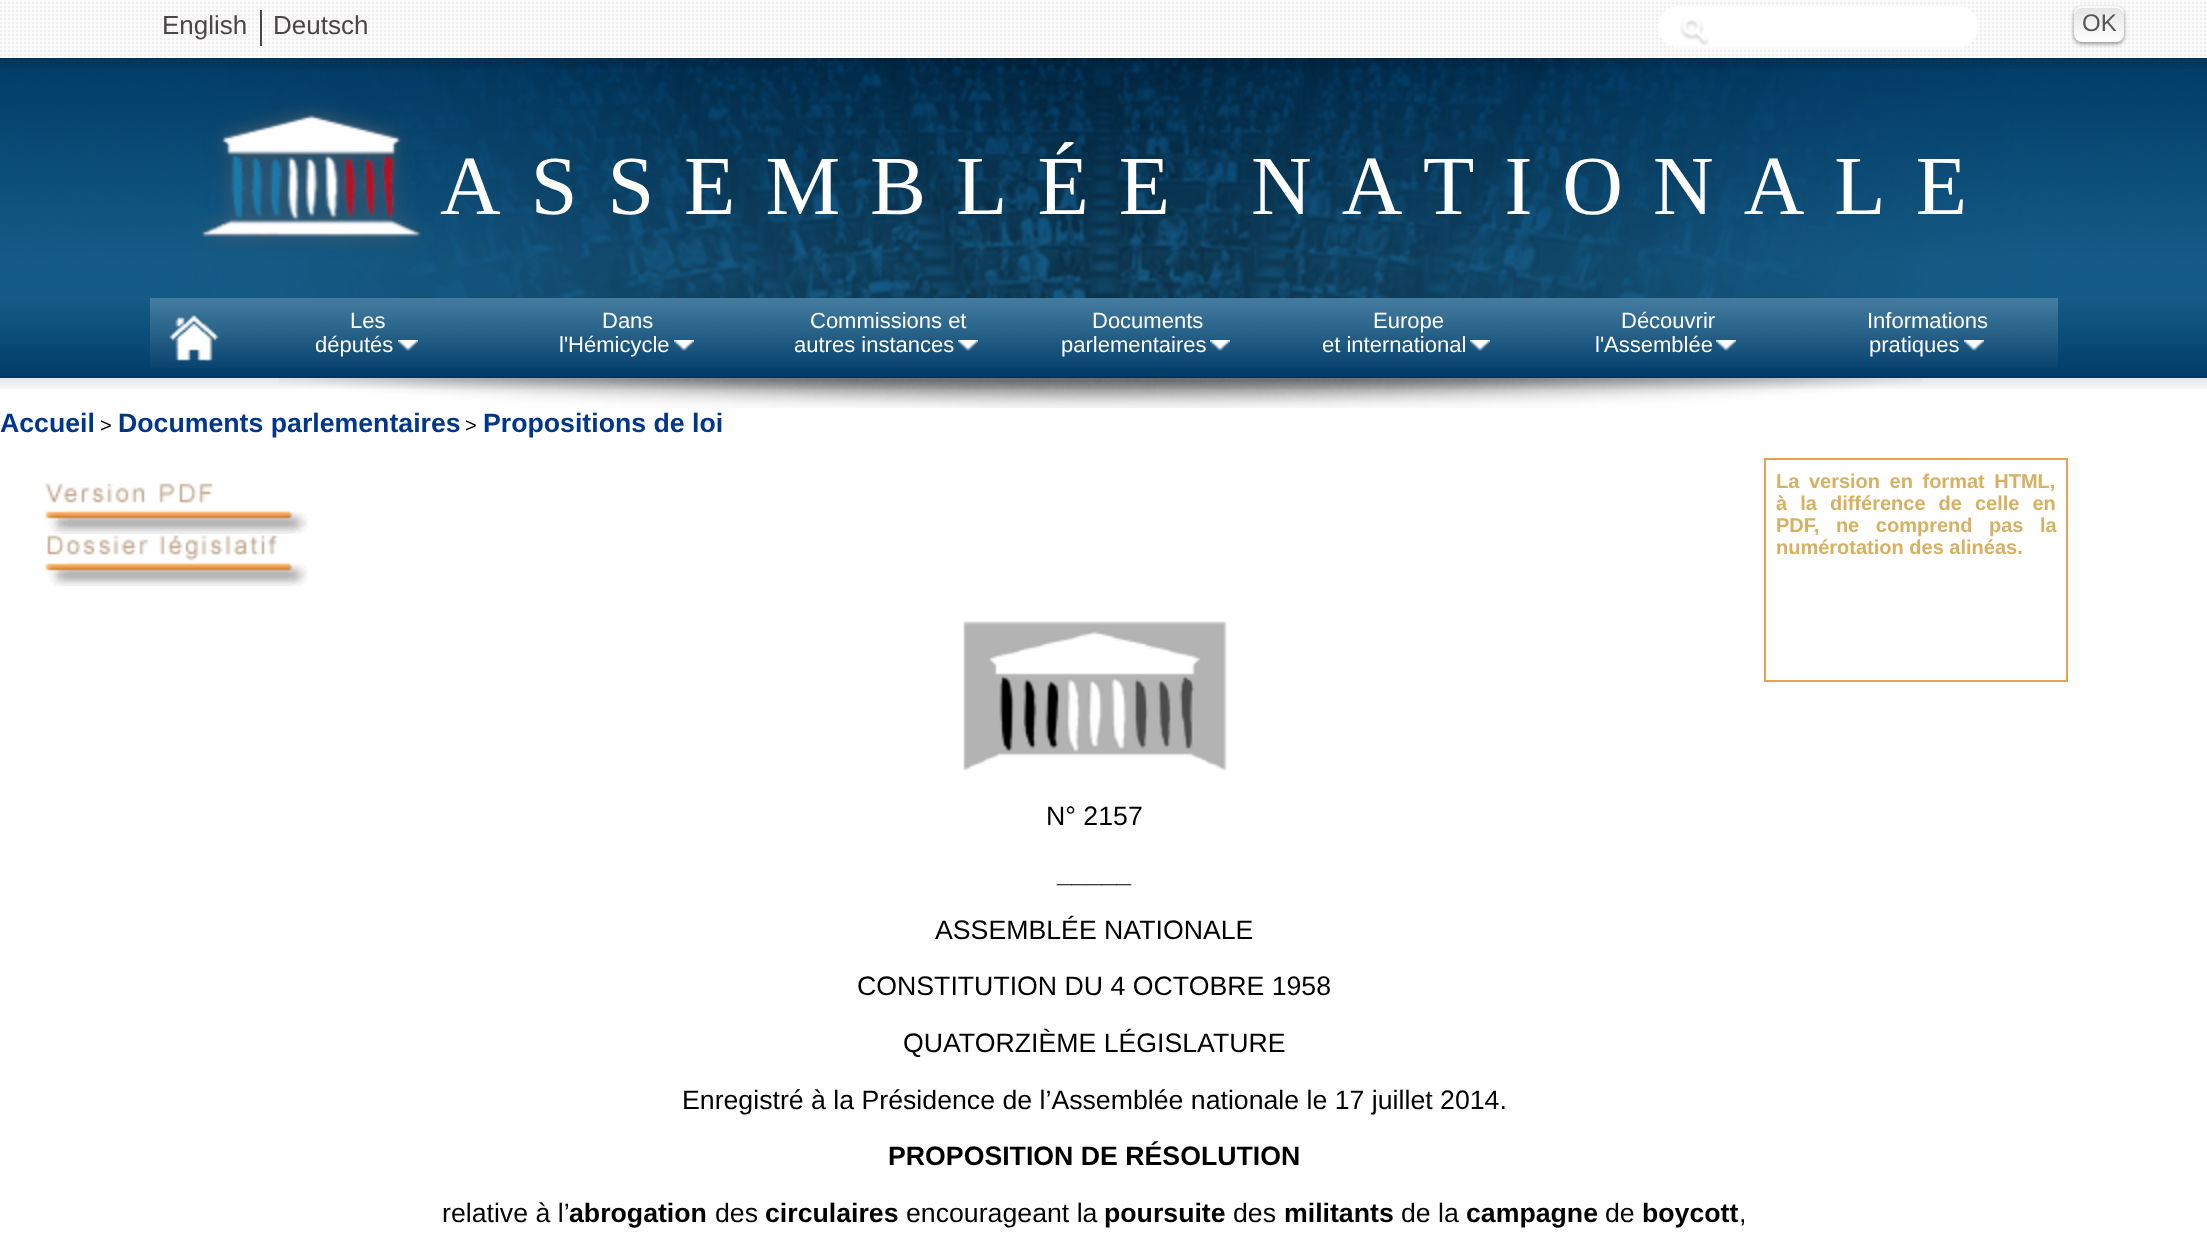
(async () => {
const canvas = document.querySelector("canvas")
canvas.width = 2207
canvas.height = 1253
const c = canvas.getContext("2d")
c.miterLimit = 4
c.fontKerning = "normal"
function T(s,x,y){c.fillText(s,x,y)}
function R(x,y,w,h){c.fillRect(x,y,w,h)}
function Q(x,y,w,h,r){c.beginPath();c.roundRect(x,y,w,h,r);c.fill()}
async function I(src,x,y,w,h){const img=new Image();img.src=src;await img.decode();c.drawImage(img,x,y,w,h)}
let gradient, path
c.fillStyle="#fff"
R(0,0,2207,1253)
await I("1.png",0,0,2207,58)
await I("2.png",0,58,2207,240)
c.font="26px Liberation Sans"
c.fillStyle="#4a4646"
T("English",162,34)
R(260,10,2,36)
T("Deutsch",273,34)
c.fillStyle="#ffffffb3"
path = new Path2D("M1658 27c-1 11 9 21 20 21h280c11 0 21-10 20-21c-1 11-9 19-20 19h-280c-11 0-19-8-20-19z")
c.fill(path)
c.fillStyle="#fff"
Q(1658,6,320,40,20)
c.fillStyle="#00000066"
c.filter="blur(2px)"
c.beginPath()
c.roundRect(2074,8,50,36,8)
c.fill()
c.filter="none"
gradient = c.createLinearGradient(2099,6,2099,42)
gradient.addColorStop(0,"#e3e3e3")
gradient.addColorStop(1,"#fff")
c.fillStyle = gradient
Q(2074,6,50,36,8)
c.fillStyle="#ffffffcc"
path = new Path2D("M2082 8h34c4 0 8 4 8 8c0-10-5-10-14-10h-22c-9 0-14 0-14 10c0-4 4-8 8-8z")
c.fill(path)
c.font="24px Liberation Sans"
c.fillStyle="#555"
T("OK",2082,31)
await I("3.png",1680,19,30,27)
await I("4.png",200,104,223,146)
c.letterSpacing="30px"
c.font="84px Liberation Serif"
c.fillStyle="#fff"
T("ASSEMBLÉE NATIONALE",440,214)
await I("15.png",0,298,2207,80)
await I("5.png",150,298,1908,70)
await I("6.png",169,315,50,47)
c.letterSpacing="0px"
c.font="22px Liberation Sans"
T("Les",350,328)
T("députés",315,352)
await I("7.png",398,340,20,11)
T("Dans",602,328)
T("l'Hémicycle",559,352)
await I("8.png",674,340,20,11)
T("Commissions et",810,328)
T("autres instances",794,352)
await I("9.png",958,340,20,11)
T("Documents",1092,328)
T("parlementaires",1061,352)
await I("10.png",1210,340,20,11)
T("Europe",1373,328)
T("et international",1322,352)
await I("11.png",1470,340,20,11)
T("Découvrir",1621,328)
T("l'Assemblée",1595,352)
await I("12.png",1716,340,20,11)
T("Informations",1867,328)
T("pratiques",1869,352)
await I("13.png",1964,340,20,11)
await I("14.png",0,58,2207,11)
await I("17.png",279,378,1644,30)
await I("16.png",0,376,2207,13)
c.font="bold 26.7px Liberation Sans"
c.fillStyle="#00378b"
T("Accueil",0,432)
c.font="20px Liberation Sans"
c.fillStyle="#000"
T(">",100,432)
c.font="bold 26.7px Liberation Sans"
c.fillStyle="#00378b"
T("Documents parlementaires",118,432)
c.font="20px Liberation Sans"
c.fillStyle="#000"
T(">",465,432)
c.font="bold 26.7px Liberation Sans"
c.fillStyle="#00378b"
T("Propositions de loi",483,432)
c.strokeStyle="#eb9f53"
c.lineWidth=2
c.strokeRect(1765,459,302,222)
c.wordSpacing="4px"
c.font="bold 20px Liberation Sans"
c.fillStyle="#d7b061"
T("La version en format HTML,",1776,488)
c.wordSpacing="7.5px"
T("à la différence de celle en",1776,510)
c.wordSpacing="11px"
T("PDF, ne comprend pas la",1776,532)
c.wordSpacing="0px"
T("numérotation des alinéas.",1776,554)
await I("18.png",45,483,263,51)
await I("19.png",45,535,263,51)
await I("20.png",963,621,264,150)
c.font="26.7px Liberation Sans"
c.fillStyle="#000"
T("N° 2157",1046,825)
c.font="bold 26.7px Liberation Sans"
T("_____",1057,882)
c.font="26.7px Liberation Sans"
T("ASSEMBLÉE NATIONALE",935,939)
T("CONSTITUTION DU 4 OCTOBRE 1958",857,995)
T("QUATORZIÈME LÉGISLATURE",903,1052)
T("Enregistré à la Présidence de l’Assemblée nationale le 17 juillet 2014.",682,1109)
c.font="bold 26.7px Liberation Sans"
T("PROPOSITION DE RÉSOLUTION",888,1165)
c.font="26.7px Liberation Sans"
T("relative à l’",442,1222)
c.font="bold 26.7px Liberation Sans"
T("abrogation",569,1222)
c.font="26.7px Liberation Sans"
T("des",715,1222)
c.font="bold 26.7px Liberation Sans"
T("circulaires",765,1222)
c.font="26.7px Liberation Sans"
T("encourageant la",906,1222)
c.font="bold 26.7px Liberation Sans"
T("poursuite",1104,1222)
c.font="26.7px Liberation Sans"
T("des",1233,1222)
c.font="bold 26.7px Liberation Sans"
T("militants",1284,1222)
c.font="26.7px Liberation Sans"
T("de la",1401,1222)
c.font="bold 26.7px Liberation Sans"
T("campagne",1466,1222)
c.font="26.7px Liberation Sans"
T("de",1605,1222)
c.font="bold 26.7px Liberation Sans"
T("boycott",1642,1222)
c.font="26.7px Liberation Sans"
T(",",1739,1222)
})()
